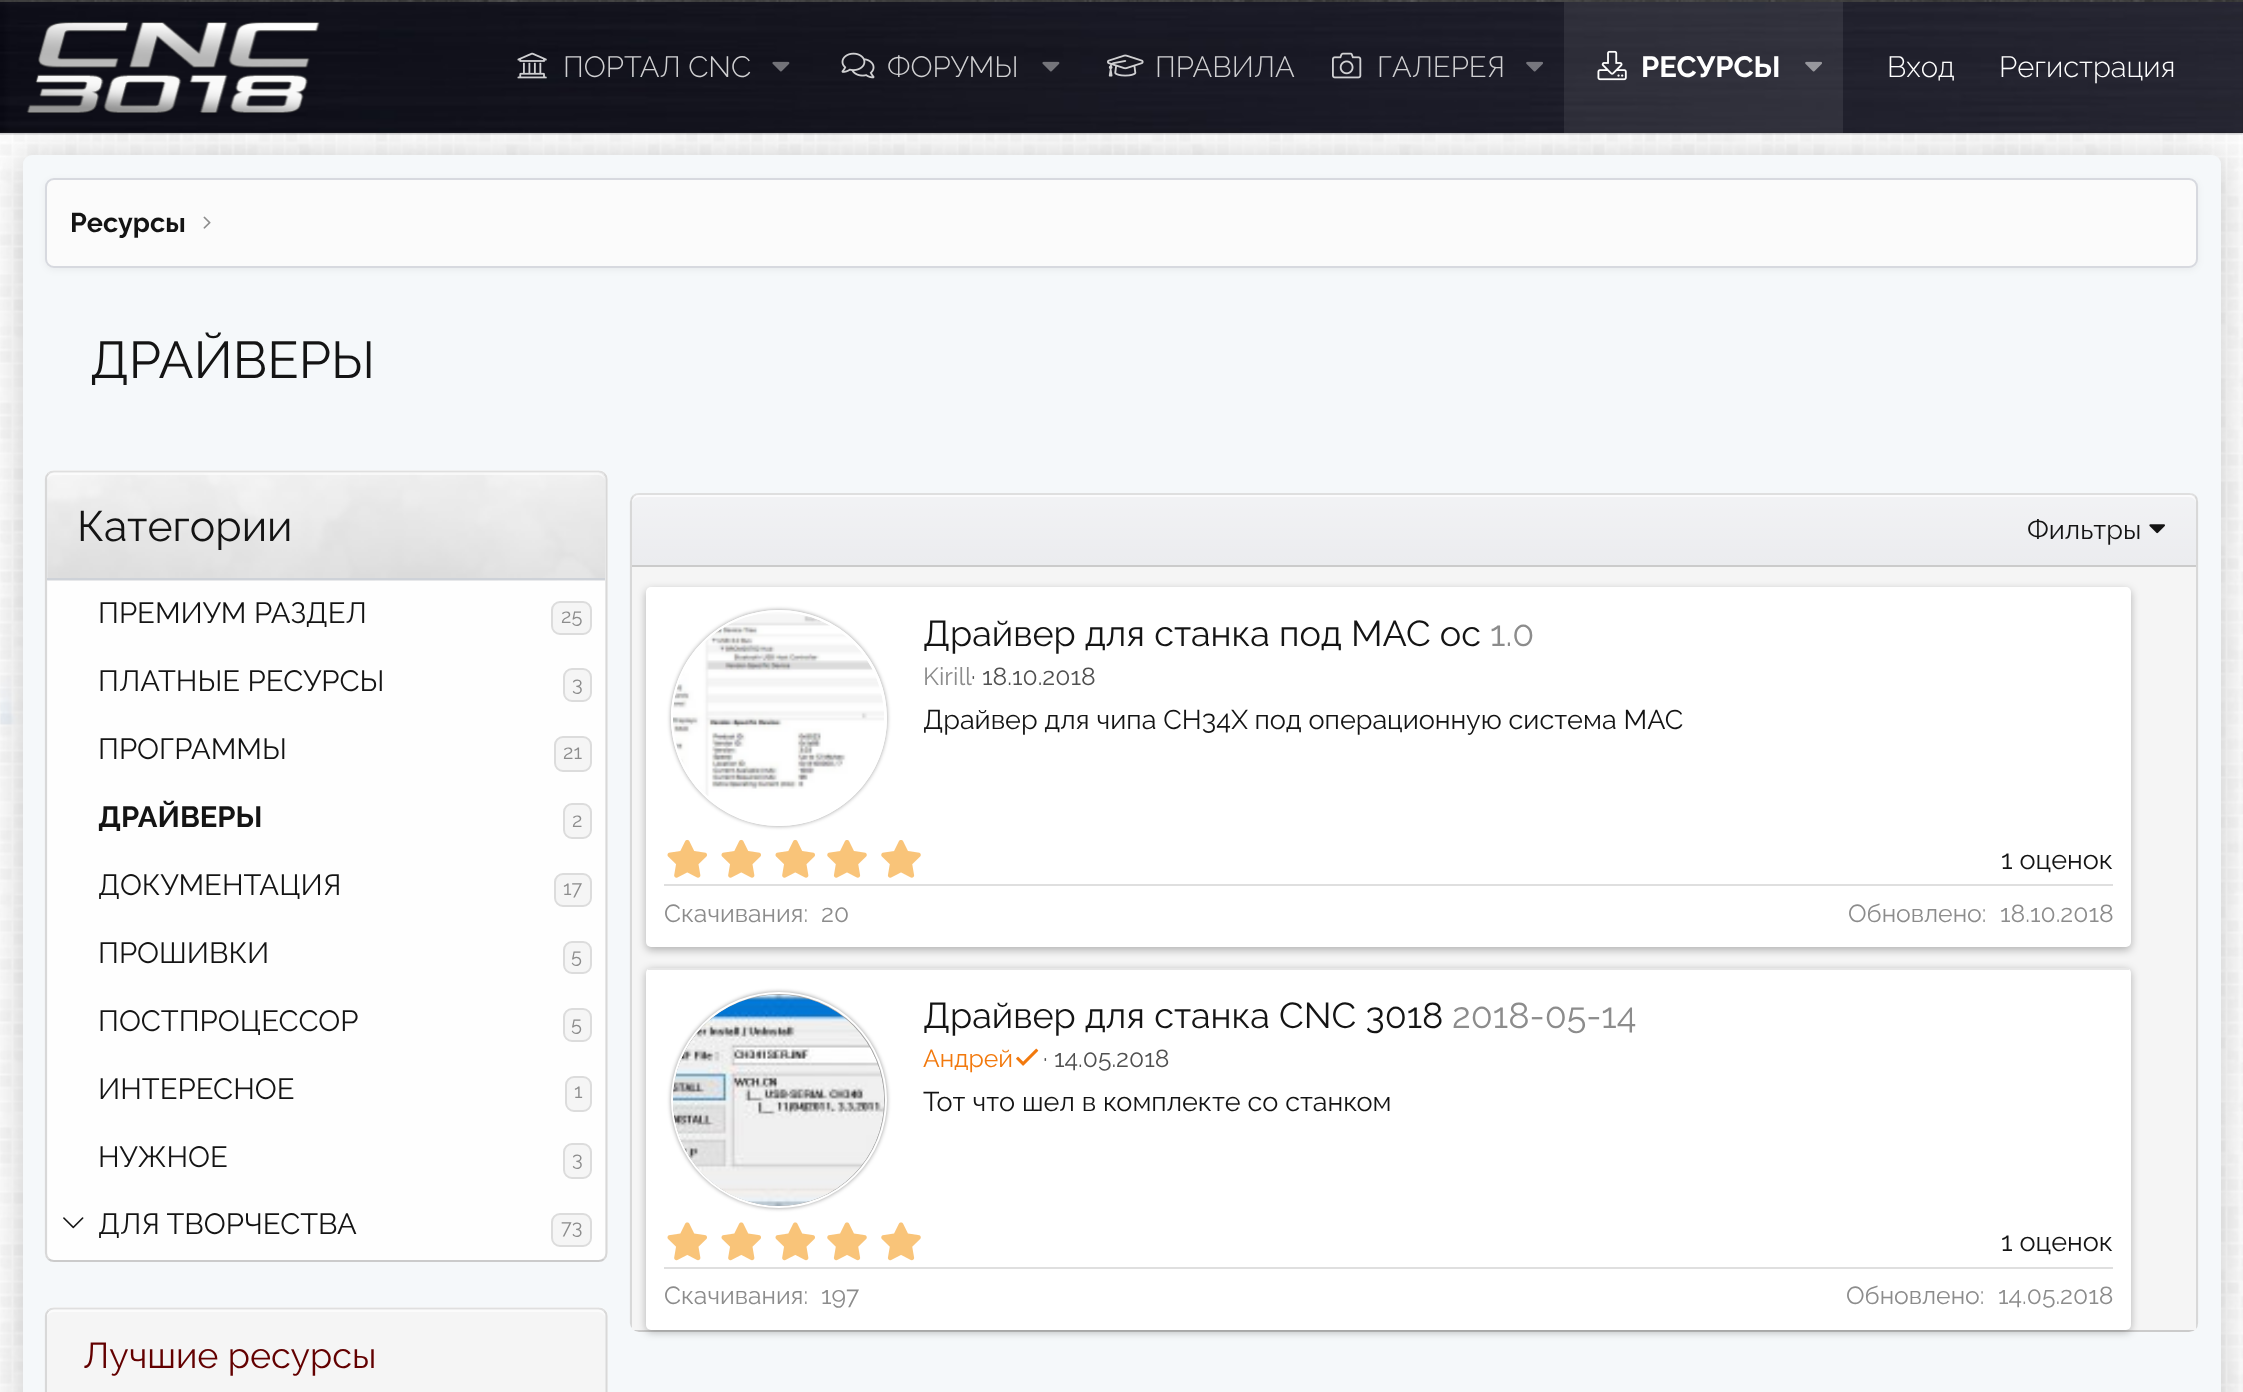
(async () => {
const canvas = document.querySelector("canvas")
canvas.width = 2243
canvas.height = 1392
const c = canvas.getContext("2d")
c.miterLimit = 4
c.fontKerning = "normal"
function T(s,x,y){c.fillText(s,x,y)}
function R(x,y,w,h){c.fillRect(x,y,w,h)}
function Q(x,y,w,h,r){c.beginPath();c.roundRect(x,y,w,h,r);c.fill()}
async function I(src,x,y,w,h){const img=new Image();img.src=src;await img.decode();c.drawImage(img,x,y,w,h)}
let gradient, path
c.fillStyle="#fff"
R(0,0,2243,1392)
await I("1.png",0,133,2243,1259)
c.fillStyle="#020202"
R(0,0,2243,2)
await I("2.png",0,0,2243,2)
c.fillStyle="#ebecef1a"
R(0,0,2243,2)
c.fillStyle="#00000033"
c.filter="blur(18px)"
c.beginPath()
c.roundRect(23,158,2198,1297,9)
c.fill()
c.filter="none"
c.fillStyle="#222226"
R(0,2,2243,131)
await I("3.png",0,2,2243,133)
await I("4.png",26,22,294,91)
await I("5.png",517,52,30,27)
c.font="300 29.25px Raleway"
c.fillStyle="#d0d0d2"
T("ПОРТАЛ CNC",563,77)
await I("6.png",772,61,18,11)
await I("7.png",841,52,34,27)
T("ФОРУМЫ",887,77)
await I("8.png",1042,61,18,11)
await I("9.png",1107,54,37,23)
T("ПРАВИЛА",1155,77)
await I("10.png",1332,52,30,27)
T("ГАЛЕРЕЯ",1377,77)
await I("11.png",1526,61,17,11)
c.fillStyle="#ffffff14"
R(1564,2,279,131)
await I("12.png",1597,50,30,31)
c.font="bold 29.25px Raleway"
c.fillStyle="#fff"
T("РЕСУРСЫ",1641,77)
await I("13.png",1805,61,17,11)
c.font="300 29.25px Raleway"
T("Вход",1887,77)
T("Регистрация",1999,77)
c.fillStyle="#f5f8fa"
Q(23,155,2198,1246,9)
c.fillStyle="#0000000d"
c.filter="blur(3.5px)"
c.beginPath()
c.roundRect(45,180,2153,90,9)
c.fill()
c.filter="none"
c.fillStyle="#fbfbfb"
c.beginPath()
c.roundRect(46,179,2151,88,8)
c.fill()
c.strokeStyle="#d7d9df"
c.lineWidth=2
c.stroke()
c.font="bold 27px Raleway"
c.fillStyle="#141414"
T("Ресурсы",70,232)
await I("14.png",203,216,8,13)
c.font="51.75px Raleway"
T("ДРАЙВЕРЫ",90,378)
c.fillStyle="#fefefe"
Q(45,470,563,792,9)
path = new Path2D("M48.5 473.5c1.5-1.5 3.5-2 5.5-2h544.5c2 0 4 .5 5.5 2")
c.strokeStyle="#dfdfdf"
c.lineWidth=2.2
c.stroke(path)
path = new Path2D("M604 473.5c1.5 1.5 2.5 3.5 2.5 5.5v774c0 2.5-1 4.5-2.5 6")
c.strokeStyle="#d8d8d8"
c.stroke(path)
path = new Path2D("M604 1259c-1.5 1.5-3.5 2-5.5 2h-544.5c-2 0-4-.5-5.5-2")
c.strokeStyle="#cbcbcb"
c.stroke(path)
path = new Path2D("M48.5 1259c-1.5-1.5-2.5-3.5-2.5-6v-774c0-2 1-4 2.5-5.5")
c.strokeStyle="#d8d8d8"
c.stroke(path)
c.fillStyle="#ebecef"
c.beginPath()
c.roundRect(47,473,558,108,[7,7,0,0])
c.fill()
await I("15.png",47,473,558,108)
c.fillStyle="#ffffff99"
path = new Path2D("M54 475h544c4 0 7 3 7 7c0-4-2-9-7-9h-544c-5 0-7 5-7 9c0-4 3-7 7-7z")
c.fill(path)
c.fillStyle="#ced2d8"
R(47,578,558,2)
c.font="42.75px Raleway"
c.fillStyle="#141414"
T("Категории",77,541)
c.font="29.25px Raleway"
T("ПРЕМИУМ РАЗДЕЛ",98,623)
c.fillStyle="#f5f5f5"
c.beginPath()
c.roundRect(552,602,39,32,8)
c.fill()
c.strokeStyle="#dcdcdc"
c.lineWidth=2
c.stroke()
c.font="20px Raleway"
c.fillStyle="#8c8c8c"
T("25",561,623)
c.font="29.25px Raleway"
c.fillStyle="#141414"
T("ПЛАТНЫЕ РЕСУРСЫ",98,691)
c.fillStyle="#f5f5f5"
c.beginPath()
c.roundRect(564,669,27,32,8)
c.fill()
c.stroke()
c.font="20px Raleway"
c.fillStyle="#8c8c8c"
T("3",572,691)
c.font="29.25px Raleway"
c.fillStyle="#141414"
T("ПРОГРАММЫ",98,759)
c.fillStyle="#f5f5f5"
c.beginPath()
c.roundRect(555,737,36,34,8)
c.fill()
c.stroke()
c.font="20px Raleway"
c.fillStyle="#8c8c8c"
T("21",563,759)
c.font="bold 29.25px Raleway"
c.fillStyle="#141414"
T("ДРАЙВЕРЫ",98,827)
c.fillStyle="#f5f5f5"
c.beginPath()
c.roundRect(564,804,27,34,8)
c.fill()
c.stroke()
c.font="20px Raleway"
c.fillStyle="#8c8c8c"
T("2",572,827)
c.font="29.25px Raleway"
c.fillStyle="#141414"
T("ДОКУМЕНТАЦИЯ",98,895)
c.fillStyle="#f5f5f5"
c.beginPath()
c.roundRect(555,874,36,32,8)
c.fill()
c.stroke()
c.font="20px Raleway"
c.fillStyle="#8c8c8c"
T("17",563,895)
c.font="29.25px Raleway"
c.fillStyle="#141414"
T("ПРОШИВКИ",98,963)
c.fillStyle="#f5f5f5"
c.beginPath()
c.roundRect(564,942,27,31,8)
c.fill()
c.stroke()
c.font="20px Raleway"
c.fillStyle="#8c8c8c"
T("5",571,963)
c.font="29.25px Raleway"
c.fillStyle="#141414"
T("ПОСТПРОЦЕССОР",98,1031)
c.fillStyle="#f5f5f5"
c.beginPath()
c.roundRect(564,1009,27,32,8)
c.fill()
c.stroke()
c.font="20px Raleway"
c.fillStyle="#8c8c8c"
T("5",571,1031)
c.font="29.25px Raleway"
c.fillStyle="#141414"
T("ИНТЕРЕСНОЕ",98,1099)
c.fillStyle="#f5f5f5"
c.beginPath()
c.roundRect(566,1077,25,34,8)
c.fill()
c.stroke()
c.font="20px Raleway"
c.fillStyle="#8c8c8c"
T("1",574,1098)
c.font="29.25px Raleway"
c.fillStyle="#141414"
T("НУЖНОЕ",98,1167)
c.fillStyle="#f5f5f5"
c.beginPath()
c.roundRect(564,1144,27,34,8)
c.fill()
c.stroke()
c.font="20px Raleway"
c.fillStyle="#8c8c8c"
T("3",572,1166)
await I("16.png",63,1217,21,12)
c.font="29.25px Raleway"
c.fillStyle="#141414"
T("ДЛЯ ТВОРЧЕСТВА",98,1234)
c.fillStyle="#f5f5f5"
c.beginPath()
c.roundRect(552,1214,39,32,8)
c.fill()
c.stroke()
c.font="20px Raleway"
c.fillStyle="#8c8c8c"
T("73",561,1234)
c.fillStyle="#fefefe"
Q(45,1307,563,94,9)
path = new Path2D("M48.5 1310.5c1.5-1.5 3.5-2 5.5-2h544.5c2 0 4 .5 5.5 2")
c.strokeStyle="#dfdfdf"
c.lineWidth=2.2
c.stroke(path)
path = new Path2D("M604 1310.5c1.5 1.5 2.5 3.5 2.5 5.5v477c0 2.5-1 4.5-2.5 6")
c.strokeStyle="#d8d8d8"
c.stroke(path)
path = new Path2D("M48.5 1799c-1.5-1.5-2.5-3.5-2.5-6v-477c0-2 1-4 2.5-5.5")
c.stroke(path)
c.fillStyle="#f5f5f5"
path = new Path2D("M54 1310h544c4 0 7 3 7 7v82h-558v-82c0-4 3-7 7-7z")
c.fill(path)
c.fillStyle="#ffffff99"
path = new Path2D("M54 1312h544c4 0 7 3 7 6c0-4-2-8-7-8h-544c-5 0-7 4-7 8c0-3 3-6 7-6z")
c.fill(path)
c.font="36px Raleway"
c.fillStyle="#630000"
T("Лучшие ресурсы",83,1368)
c.fillStyle="#fefefe"
Q(630,493,1568,839,9)
path = new Path2D("M633.5 496c1.5-1.5 3.5-2 5.5-2h1550c2.5 0 4.5 .5 6 2")
c.strokeStyle="#dfdfdf"
c.stroke(path)
path = new Path2D("M2195 496c1.5 1.5 2 3.5 2 6v821c0 2-.5 4-2 5.5")
c.strokeStyle="#d8d8d8"
c.stroke(path)
path = new Path2D("M2195 1328.5c-1.5 1.5-3.5 2.5-6 2.5h-1550c-2 0-4-1-5.5-2.5")
c.strokeStyle="#cbcbcb"
c.stroke(path)
path = new Path2D("M633.5 1328.5c-1.5-1.5-2.5-3.5-2.5-5.5v-821c0-2.5 1-4.5 2.5-6")
c.strokeStyle="#d8d8d8"
c.stroke(path)
c.fillStyle="#ebecef"
c.beginPath()
c.roundRect(632,495,1564,72,[7,7,0,0])
c.fill()
gradient = c.createLinearGradient(1414,495,1414,565)
gradient.addColorStop(0,"#ffffff59")
gradient.addColorStop(1,"#ffffff00")
c.fillStyle = gradient
c.beginPath()
c.roundRect(632,495,1564,70,[7,7,0,0])
c.fill()
c.fillStyle="#fbfbfc"
path = new Path2D("M639 497h1550c4 0 7 3 7 7c0-4-2-9-7-9h-1550c-5 0-7 5-7 9c0-4 3-7 7-7z")
c.fill(path)
c.fillStyle="#cbcbcb"
R(632,565,1564,2)
c.font="27px Raleway"
c.fillStyle="#141414"
T("Фильтры",2027,539)
await I("17.png",2149,524,16,10)
c.fillStyle="#f5f5f5"
R(632,567,1564,763)
c.fillStyle="#00000047"
c.filter="blur(4.5px)"
c.beginPath()
c.roundRect(646,590,1485,360,5)
c.fill()
c.filter="none"
c.fillStyle="#fff"
Q(646,587,1485,360,5)
c.save()
path = new Path2D("M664 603h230v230h-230zm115 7c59.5 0 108 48.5 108 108c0 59.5-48.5 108-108 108c-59.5 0-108-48.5-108-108c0-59.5 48.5-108 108-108z")
c.clip(path,"evenodd")
c.fillStyle="#00000066"
c.filter="blur(2px)"
c.beginPath()
c.roundRect(671,610,216,216,108)
c.fill()
c.filter="none"
c.restore()
c.beginPath()
c.arc(779,718,107,0,7)
c.strokeStyle="#fff"
c.lineWidth=2
c.stroke()
await I("18.png",673,612,211,184)
c.font="36px Raleway"
c.fillStyle="#141414"
T("Драйвер для станка под MAC oc",923,646)
c.fillStyle="#8c8c8c"
T("1.0",1490,646)
c.font="24.75px Raleway"
T("Kirill",923,685)
c.fillStyle="#505050"
T("· 18.10.2018",971,685)
c.font="27px Raleway"
c.fillStyle="#141414"
T("Драйвер для чипа CH34X под операционную система MAC",923,729)
c.fillStyle="#dfdfdf"
R(664,884,1449,2)
await I("19.png",667,839,40,39)
await I("19.png",721,839,40,39)
await I("19.png",775,839,40,39)
await I("20.png",827,840,40,38)
await I("20.png",881,840,40,38)
c.fillStyle="#141414"
T("1 оценок",2001,869)
c.font="24.75px Raleway"
c.fillStyle="#8c8c8c"
T("Скачивания:",664,922)
T("20",821,922)
T("Обновлено:",1848,922)
T("18.10.2018",2000,922)
c.fillStyle="#00000047"
c.filter="blur(4.5px)"
c.beginPath()
c.roundRect(646,970,1485,362,5)
c.fill()
c.filter="none"
c.fillStyle="#fff"
Q(646,968,1485,362,5)
c.fillStyle="#e7e7e7"
R(648,968,1481,2)
c.fillStyle="#00000066"
c.filter="blur(2px)"
c.beginPath()
c.roundRect(671,992,216,216,108)
c.fill()
c.filter="none"
c.beginPath()
c.arc(779,1100,107,0,7)
c.stroke()
await I("21.png",673,994,211,212)
c.font="36px Raleway"
c.fillStyle="#141414"
T("Драйвер для станка CNC 3018",923,1028)
c.fillStyle="#8c8c8c"
T("2018-05-14",1452,1028)
c.font="24.75px Raleway"
c.fillStyle="#f2790d"
T("Андрей",923,1067)
await I("22.png",1016,1048,23,18)
c.fillStyle="#505050"
T("· 14.05.2018",1043,1067)
c.font="27px Raleway"
c.fillStyle="#141414"
T("Тот что шел в комплекте со станком",923,1111)
c.fillStyle="#dfdfdf"
R(664,1267,1449,2)
await I("23.png",667,1222,40,39)
await I("23.png",721,1222,40,39)
await I("23.png",775,1222,40,39)
await I("24.png",827,1222,40,39)
await I("24.png",881,1222,40,39)
c.fillStyle="#141414"
T("1 оценок",2001,1251)
c.font="24.75px Raleway"
c.fillStyle="#8c8c8c"
T("Скачивания:",664,1304)
T("197",821,1304)
T("Обновлено:",1846,1304)
T("14.05.2018",1998,1304)
})()
